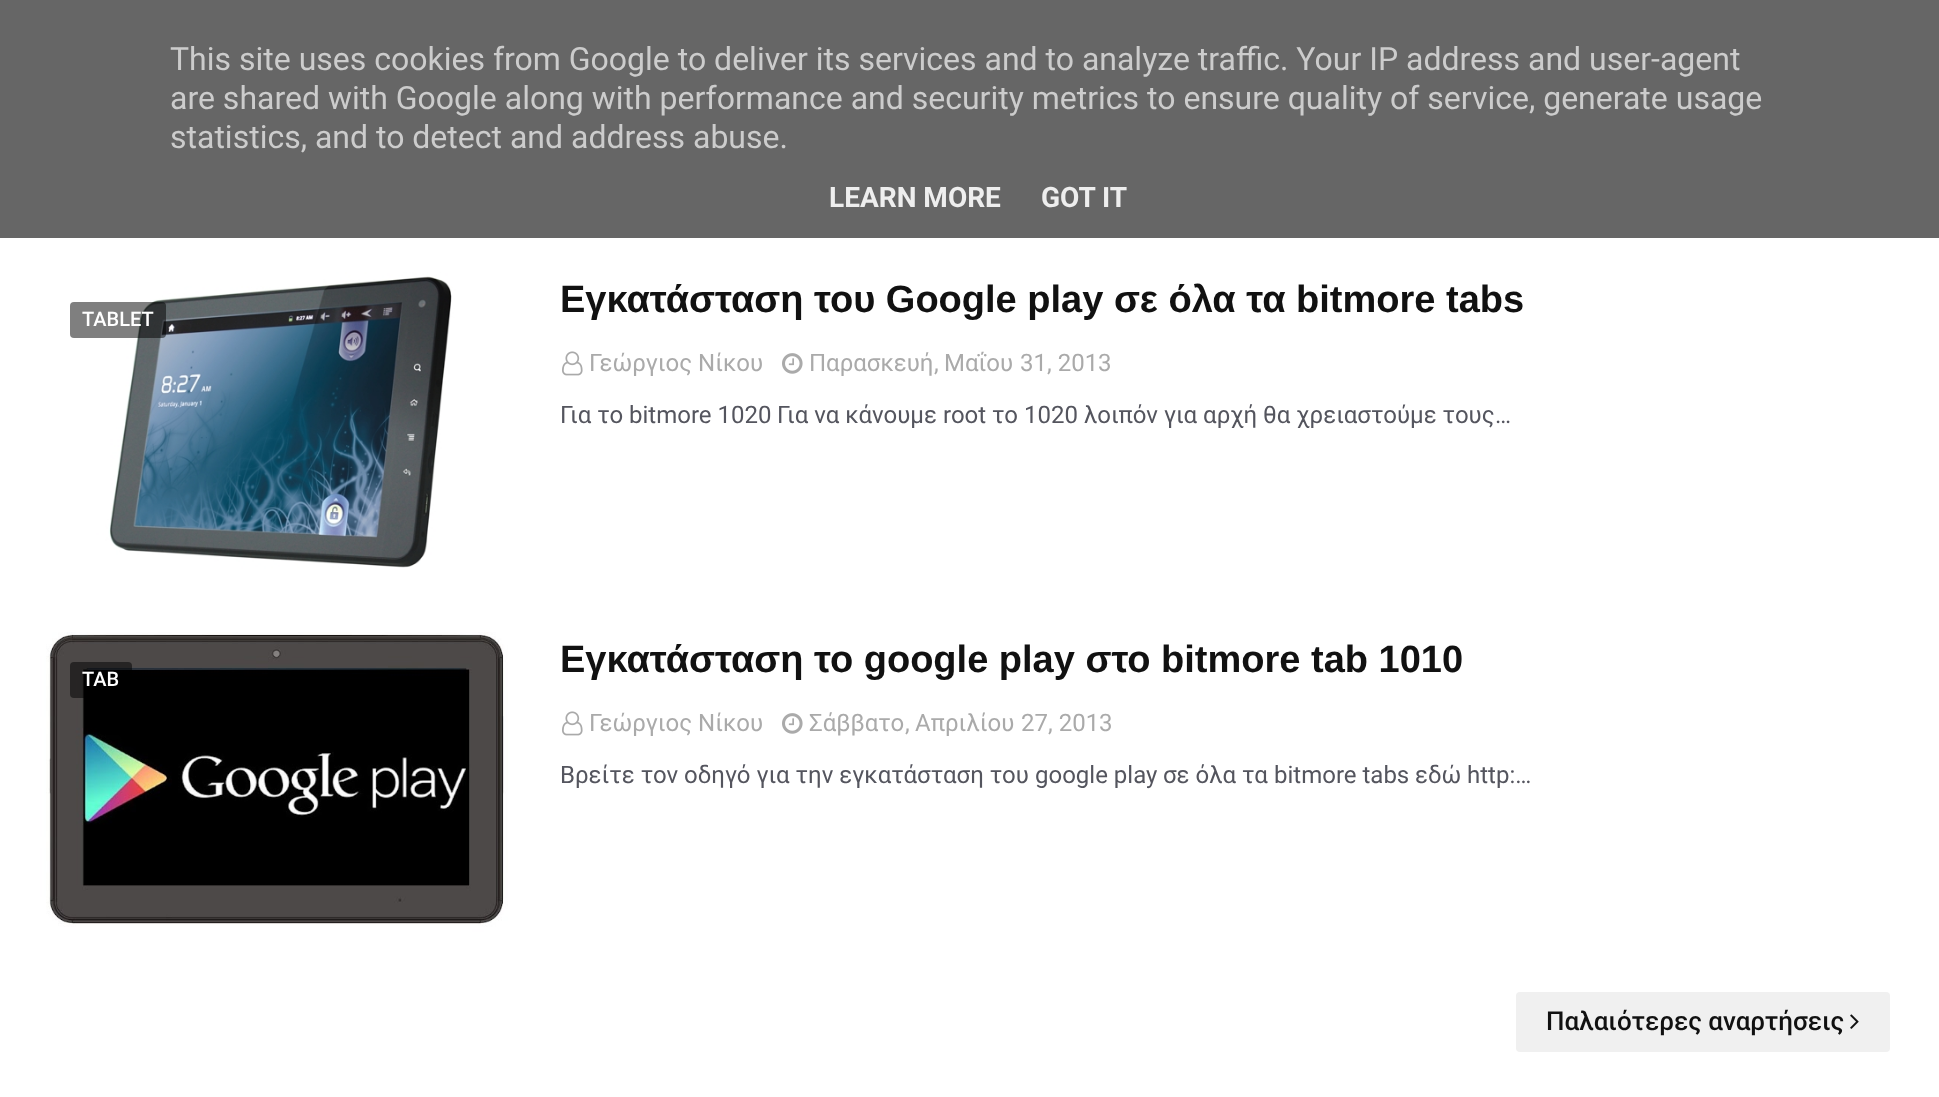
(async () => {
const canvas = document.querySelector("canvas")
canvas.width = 1939
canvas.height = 1097
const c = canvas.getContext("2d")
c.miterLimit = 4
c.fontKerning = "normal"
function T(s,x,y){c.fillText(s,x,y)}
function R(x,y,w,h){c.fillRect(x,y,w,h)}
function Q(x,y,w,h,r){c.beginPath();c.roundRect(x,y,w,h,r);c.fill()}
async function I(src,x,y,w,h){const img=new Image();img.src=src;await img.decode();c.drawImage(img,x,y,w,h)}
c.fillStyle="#fff"
R(0,0,1939,1097)
c.fillStyle="#666"
R(0,0,1939,238)
c.font="32px 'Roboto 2'"
c.fillStyle="#ccc"
T("This site uses cookies from Google to deliver its services and to analyze traffic. Your IP address and user-agent",170,70)
T("are shared with Google along with performance and security metrics to ensure quality of service, generate usage",170,109)
T("statistics, and to detect and address abuse.",170,148)
c.font="bold 28px Roboto"
c.fillStyle="#eee"
T("LEARN MORE",829,207)
T("GOT IT",1041,207)
await I("1.png",40,272,480,300)
c.fillStyle="#00000080"
Q(70,302,96,36,4)
c.font="500 20px Roboto"
c.fillStyle="#fff"
T("TABLET",82,326)
c.font="bold 38px Liberation Sans"
c.fillStyle="#111"
T("Εγκατάσταση του Google play σε όλα τα bitmore tabs",560,312)
await I("2.png",562,351,21,25)
c.font="24px Roboto"
c.fillStyle="#aaa"
T("Γεώργιος Νίκου",589,371)
await I("3.png",782,353,21,21)
T("Παρασκευή",809,371)
c.font="24px 'Roboto 2'"
T(",",934,371)
c.font="24px Roboto"
T("Μαΐου",944,371)
c.font="24px 'Roboto 2'"
T("31, 2013",1020,371)
c.font="24px Roboto"
c.fillStyle="#54555e"
T("Για το",560,423)
c.font="24px 'Roboto 2'"
T("bitmore 1020",629,423)
c.font="24px Roboto"
T("Για να κάνουμε",777,423)
c.font="24px 'Roboto 2'"
T("root",943,423)
c.font="24px Roboto"
T("το",992,423)
c.font="24px 'Roboto 2'"
T("1020",1024,423)
c.font="24px Roboto"
T("λοιπόν για αρχή θα χρειαστούμε τους",1084,423)
c.font="24px 'Roboto 2'"
T("…",1495,423)
await I("4.png",40,632,480,300)
c.fillStyle="#00000080"
Q(70,662,62,36,4)
c.font="500 20px Roboto"
c.fillStyle="#fff"
T("TAB",82,686)
c.font="bold 38px Liberation Sans"
c.fillStyle="#111"
T("Εγκατάσταση το google play στο bitmore tab 1010",560,672)
await I("2.png",562,711,21,25)
c.font="24px Roboto"
c.fillStyle="#aaa"
T("Γεώργιος Νίκου",589,731)
await I("3.png",782,713,21,21)
T("Σάββατο",809,731)
c.font="24px 'Roboto 2'"
T(",",905,731)
c.font="24px Roboto"
T("Απριλίου",915,731)
c.font="24px 'Roboto 2'"
T("27, 2013",1021,731)
c.font="24px Roboto"
c.fillStyle="#54555e"
T("Βρείτε τον οδηγό για την εγκατάσταση του",560,783)
c.font="24px 'Roboto 2'"
T("google play",1035,783)
c.font="24px Roboto"
T("σε όλα τα",1163,783)
c.font="24px 'Roboto 2'"
T("bitmore tabs",1274,783)
c.font="24px Roboto"
T("εδώ",1415,783)
c.font="24px 'Roboto 2'"
T("http:…",1467,783)
c.fillStyle="#f0f0f0"
Q(1516,992,374,60,4)
c.font="500 26px Roboto"
c.fillStyle="#111"
T("Παλαιότερες αναρτήσεις",1546,1030)
await I("5.png",1850,1014,9,15)
})()
